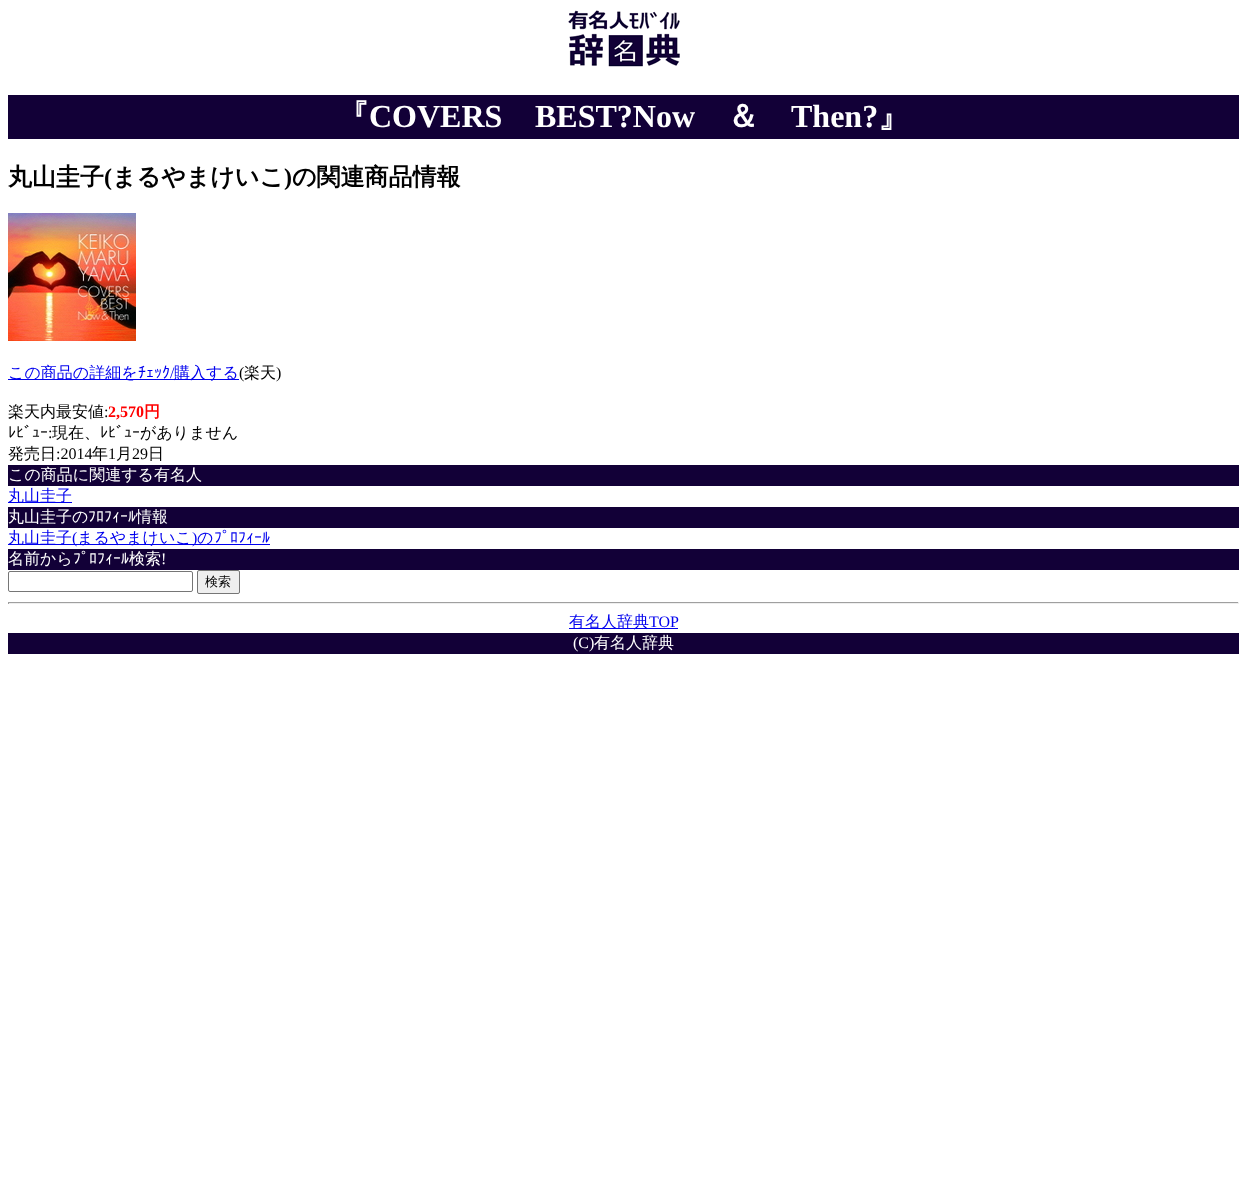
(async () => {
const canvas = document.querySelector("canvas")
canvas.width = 1247
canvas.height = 1187
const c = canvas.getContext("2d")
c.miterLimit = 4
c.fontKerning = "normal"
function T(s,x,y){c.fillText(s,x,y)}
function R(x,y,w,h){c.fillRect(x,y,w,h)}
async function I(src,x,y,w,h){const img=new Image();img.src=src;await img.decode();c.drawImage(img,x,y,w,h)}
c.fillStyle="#fff"
R(0,0,1247,1187)
await I("1.png",568,10,112,57)
c.fillStyle="#120037"
R(8,95,1231,44)
c.font="bold 32px WenQuanYi Zen Hei"
c.fillStyle="#fff"
T("『",337,127)
c.font="bold 32px Liberation Serif"
T("COVERS",369,127)
T("BEST?Now",535,127)
c.font="bold 32px WenQuanYi Zen Hei"
T("＆",727,127)
c.font="bold 32px Liberation Serif"
T("Then?",791,127)
c.font="bold 32px WenQuanYi Zen Hei"
T("』",878,127)
c.font="bold 24px WenQuanYi Zen Hei"
c.fillStyle="#000"
T("丸山圭子",8,185)
c.font="bold 24px Liberation Serif"
T("(",104,185)
c.font="bold 24px WenQuanYi Zen Hei"
T("まるやまけいこ",112,185)
c.font="bold 24px Liberation Serif"
T(")",284,185)
c.font="bold 24px WenQuanYi Zen Hei"
T("の関連商品情報",292,185)
await I("2.png",8,213,128,128)
c.fillStyle="#00e"
R(8,379,231,1)
c.font="500 16px WenQuanYi Zen Hei"
T("この商品の詳細を",8,378)
c.font="16px IPAPGothic"
T("ﾁｪｯｸ",138,378)
c.font="16px Liberation Serif"
T("/",170,378)
c.font="500 16px WenQuanYi Zen Hei"
T("購入する",174,378)
c.font="16px Liberation Serif"
c.fillStyle="#000"
T("(",239,378)
c.font="500 16px WenQuanYi Zen Hei"
T("楽天",244,378)
c.font="16px Liberation Serif"
T(")",276,378)
c.font="500 16px WenQuanYi Zen Hei"
T("楽天内最安値",8,417)
c.font="16px Liberation Serif"
T(":",104,417)
c.font="bold 16px Liberation Serif"
c.fillStyle="#f00"
T("2,570",108,417)
c.font="bold 16px WenQuanYi Zen Hei"
T("円",144,417)
c.font="16px IPAPGothic"
c.fillStyle="#000"
T("ﾚﾋﾞｭｰ",8,438)
c.font="16px Liberation Serif"
T(":",48,438)
c.font="500 16px WenQuanYi Zen Hei"
T("現在、",52,438)
c.font="16px IPAPGothic"
T("ﾚﾋﾞｭｰ",100,438)
c.font="500 16px WenQuanYi Zen Hei"
T("がありません",140,438)
T("発売日",8,459)
c.font="16px Liberation Serif"
T(":2014",56,459)
c.font="500 16px WenQuanYi Zen Hei"
T("年",92,459)
c.font="16px Liberation Serif"
T("1",108,459)
c.font="500 16px WenQuanYi Zen Hei"
T("月",116,459)
c.font="16px Liberation Serif"
T("29",132,459)
c.font="500 16px WenQuanYi Zen Hei"
T("日",148,459)
c.fillStyle="#120037"
R(8,465,1231,21)
c.fillStyle="#fff"
T("この商品に関連する有名人",8,480)
c.fillStyle="#00e"
R(8,502,64,1)
T("丸山圭子",8,501)
c.fillStyle="#120037"
R(8,507,1231,21)
c.fillStyle="#fff"
T("丸山圭子の",8,522)
c.font="16px IPAPGothic"
T("ﾌﾛﾌｨｰﾙ",88,522)
c.font="500 16px WenQuanYi Zen Hei"
T("情報",136,522)
c.fillStyle="#00e"
R(8,544,262,1)
T("丸山圭子",8,543)
c.font="16px Liberation Serif"
T("(",72,543)
c.font="500 16px WenQuanYi Zen Hei"
T("まるやまけいこ",77,543)
c.font="16px Liberation Serif"
T(")",192,543)
c.font="500 16px WenQuanYi Zen Hei"
T("の",197,543)
c.font="16px IPAPGothic"
T("ﾌﾟﾛﾌｨｰﾙ",214,543)
c.fillStyle="#120037"
R(8,549,1231,21)
c.font="500 16px WenQuanYi Zen Hei"
c.fillStyle="#fff"
T("名前から",8,564)
c.font="16px IPAPGothic"
T("ﾌﾟﾛﾌｨｰﾙ",73,564)
c.font="500 16px WenQuanYi Zen Hei"
T("検索",129,564)
c.font="16px Liberation Serif"
T("!",161,564)
c.beginPath()
c.roundRect(8.5,571.5,184,20,1.5)
c.strokeStyle="#767676"
c.stroke()
c.fillStyle="#efefef"
c.beginPath()
c.roundRect(197.5,570.5,42,23,1.5)
c.fill()
c.stroke()
c.font="500 13px WenQuanYi Zen Hei"
c.fillStyle="#000"
T("検索",205,586)
c.fillStyle="#9f9f9f"
R(8,602,1231,1)
c.fillStyle="#eee"
R(1238,602,1,2)
R(8,603,1231,1)
c.fillStyle="#9f9f9f"
R(8,602,1,2)
c.fillStyle="#00e"
R(569,628,109,1)
c.font="500 16px WenQuanYi Zen Hei"
T("有名人辞典",569,627)
c.font="16px Liberation Serif"
T("TOP",649,627)
c.fillStyle="#120037"
R(8,633,1231,21)
c.fillStyle="#fff"
T("(C)",573,648)
c.font="500 16px WenQuanYi Zen Hei"
T("有名人辞典",594,648)
})()
